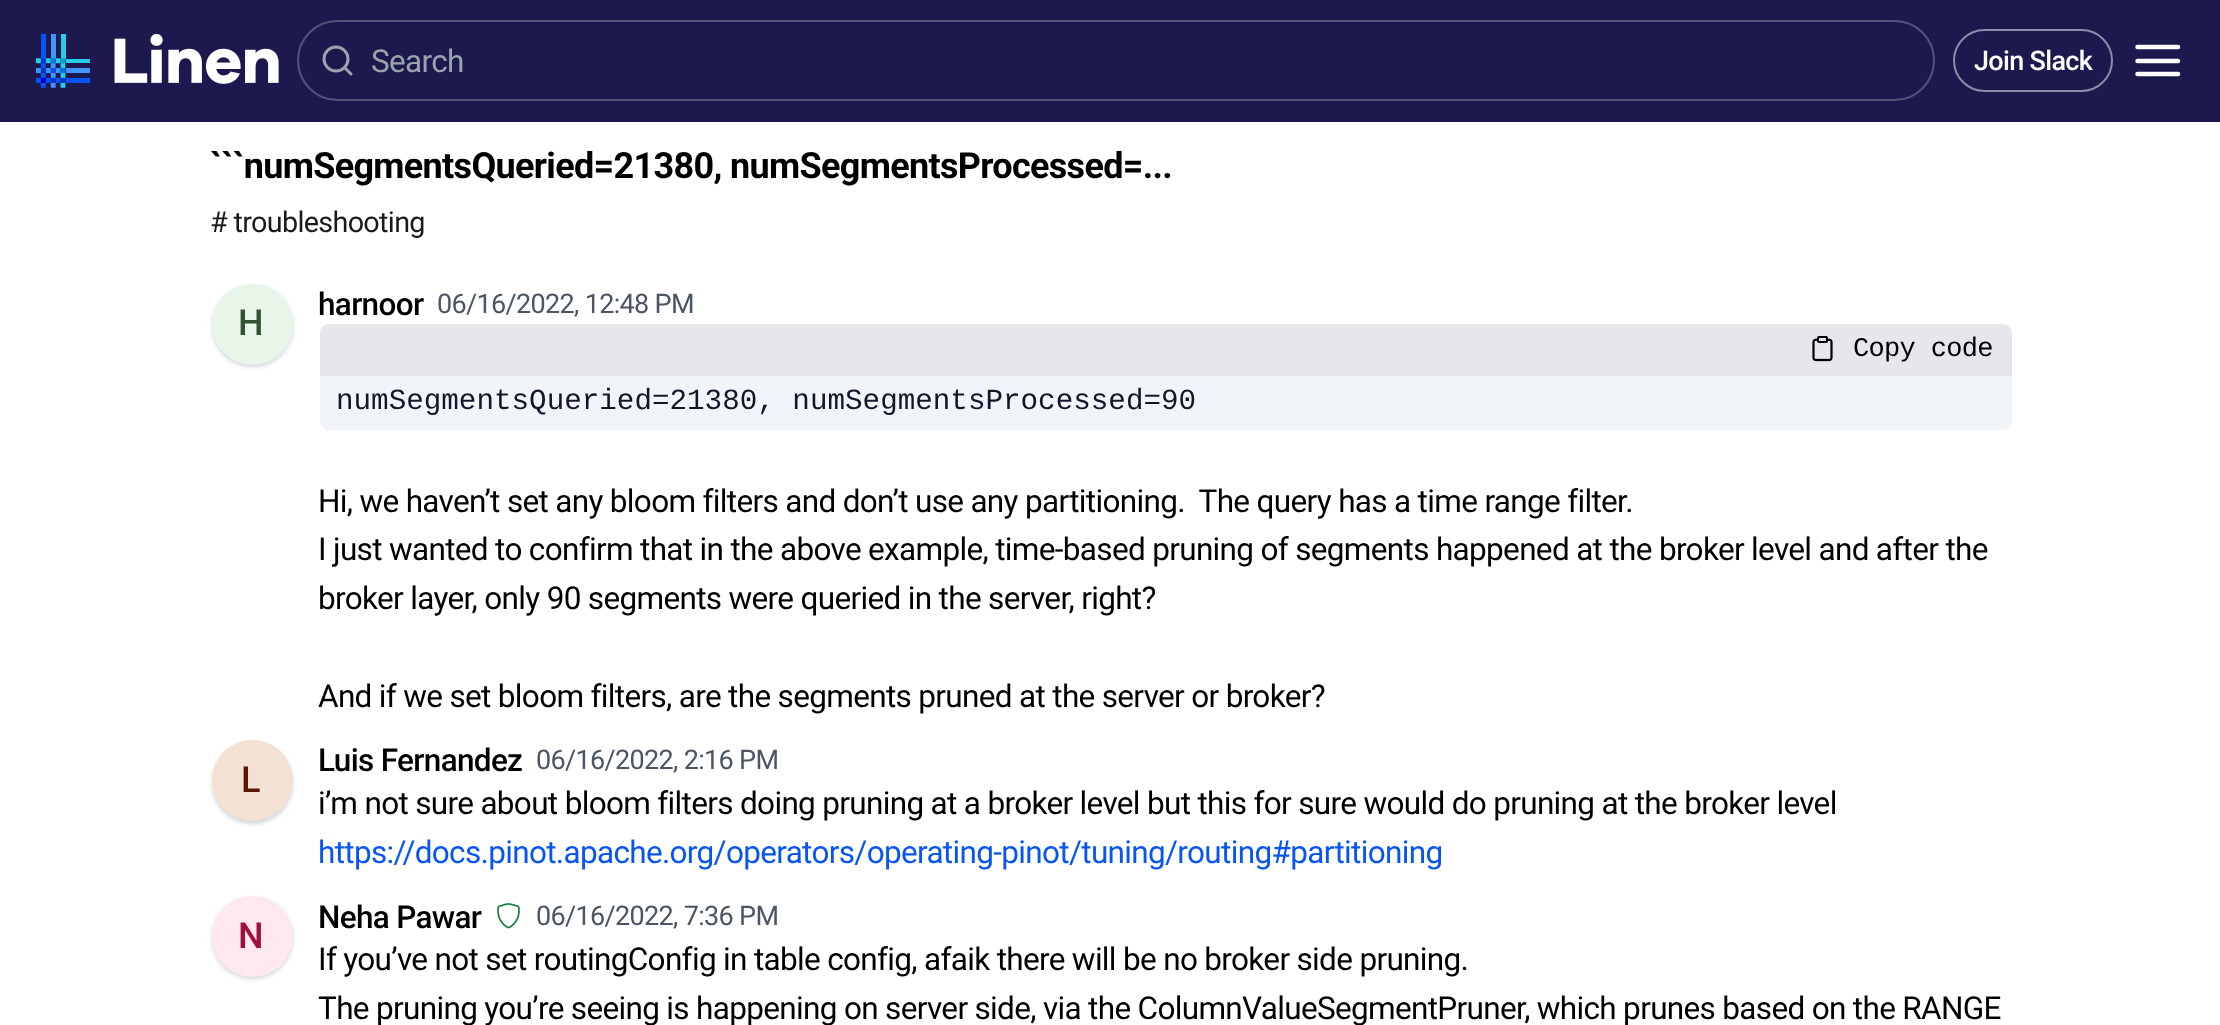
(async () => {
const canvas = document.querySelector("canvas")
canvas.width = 2220
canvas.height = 1025
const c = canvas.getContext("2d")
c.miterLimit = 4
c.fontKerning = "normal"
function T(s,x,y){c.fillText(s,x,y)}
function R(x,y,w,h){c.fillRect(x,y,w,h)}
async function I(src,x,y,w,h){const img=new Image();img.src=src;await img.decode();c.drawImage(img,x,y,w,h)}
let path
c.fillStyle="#fff"
R(0,0,2220,1025)
c.fillStyle="#1b194e"
R(0,0,2220,122)
await I("1.png",36,34,243,54)
c.beginPath()
c.roundRect(298,21,1636,79,39.5)
c.strokeStyle="#54537a"
c.lineWidth=2
c.stroke()
c.beginPath()
c.arc(336,59,12,0,7)
c.strokeStyle="#9ca3af"
c.lineWidth=3
c.stroke()
path = new Path2D("M351 74l-6.5-6.5")
c.lineCap="round"
c.lineJoin="round"
c.stroke(path)
c.letterSpacing="-0.67px"
c.font="31.5px Roboto"
c.fillStyle="#9ca3af"
T("Search",371,72)
c.beginPath()
c.roundRect(1954,30,158,61,30.5)
c.strokeStyle="#8d8ca7"
c.lineWidth=2
c.lineJoin="miter"
c.stroke()
c.font="500 27px Roboto"
c.fillStyle="#fff"
T("Join Slack",1974,70)
path = new Path2D("M2137.5 61h40.5m-40.5-14h40.5m-40.5 27h40.5")
c.strokeStyle="#fff"
c.lineWidth=4.5
c.lineJoin="round"
c.stroke(path)
c.font="bold 36px Roboto"
c.fillStyle="#000"
T("```numSegmentsQueried=21380, numSegmentsProcessed=...",210,178)
c.font="28.75px Roboto"
c.fillStyle="#1a1a1a"
T("# troubleshooting",210,232)
c.fillStyle="#d1d5db"
c.filter="blur(2px)"
c.beginPath()
c.roundRect(212,286,81,81,40.5)
c.fill()
c.filter="none"
c.fillStyle="#e9f5e9"
c.beginPath()
c.arc(252.5,324.5,40.5,0,7)
c.fill()
c.font="500 36px Roboto"
c.fillStyle="#305332"
T("H",238,335)
c.font="500 31.5px Roboto"
c.fillStyle="#000"
T("harnoor",318,315)
c.font="27px Roboto"
c.fillStyle="#4b5563"
T("06/16/2022, 12:48 PM",437,313)
c.fillStyle="#e5e7eb"
c.beginPath()
c.roundRect(320,324,1692,52,[9,9,0,0])
c.fill()
await I("2.png",1812,336,21,26)
c.font="27px Liberation Mono"
c.fillStyle="#000"
T("Copy code",1853,356)
c.fillStyle="#f1f5f9"
c.beginPath()
c.roundRect(320,376,1692,54,[0,0,9,9])
c.fill()
c.letterSpacing="0px"
c.font="29.25px Liberation Mono"
c.fillStyle="#0f172a"
T("numSegmentsQueried=21380, numSegmentsProcessed=90",336,409)
c.letterSpacing="-0.67px"
c.font="31.5px Roboto"
c.fillStyle="#000"
T("Hi, we haven’t set any bloom filters and don’t use any partitioning.  The query has a time range filter.",318,512)
T("I just wanted to confirm that in the above example, time-based pruning of segments happened at the broker level and after the",318,560)
T("broker layer, only 90 segments were queried in the server, right?",318,609)
T("And if we set bloom filters, are the segments pruned at the server or broker?",318,707)
c.fillStyle="#d1d5db"
c.filter="blur(2px)"
c.beginPath()
c.roundRect(212,743,81,81,40.5)
c.fill()
c.filter="none"
c.fillStyle="#f5e1d4"
c.beginPath()
c.arc(252.5,780.5,40.5,0,7)
c.fill()
c.font="500 36px Roboto"
c.fillStyle="#5a1500"
T("L",241,792)
c.font="500 31.5px Roboto"
c.fillStyle="#000"
T("Luis Fernandez",318,771)
c.font="27px Roboto"
c.fillStyle="#4b5563"
T("06/16/2022, 2:16 PM",536,769)
c.font="31.5px Roboto"
c.fillStyle="#000"
T("i’m not sure about bloom filters doing pruning at a broker level but this for sure would do pruning at the broker level",318,814)
c.fillStyle="#0855f4"
T("https://docs.pinot.apache.org/operators/operating-pinot/tuning/routing#partitioning",318,863)
c.fillStyle="#d1d5db"
c.filter="blur(2px)"
c.beginPath()
c.roundRect(212,898,81,81,40.5)
c.fill()
c.filter="none"
c.fillStyle="#ffe8f0"
c.beginPath()
c.arc(252.5,936.5,40.5,0,7)
c.fill()
c.font="500 36px Roboto"
c.fillStyle="#a20d41"
T("N",238,948)
c.font="500 31.5px Roboto"
c.fillStyle="#000"
T("Neha Pawar",318,928)
await I("3.png",497,903,23,26)
c.font="27px Roboto"
c.fillStyle="#4b5563"
T("06/16/2022, 7:36 PM",536,925)
c.font="31.5px Roboto"
c.fillStyle="#000"
T("If you’ve not set routingConfig in table config, afaik there will be no broker side pruning.",318,970)
T("The pruning you’re seeing is happening on server side, via the ColumnValueSegmentPruner, which prunes based on the RANGE",318,1019)
})()
